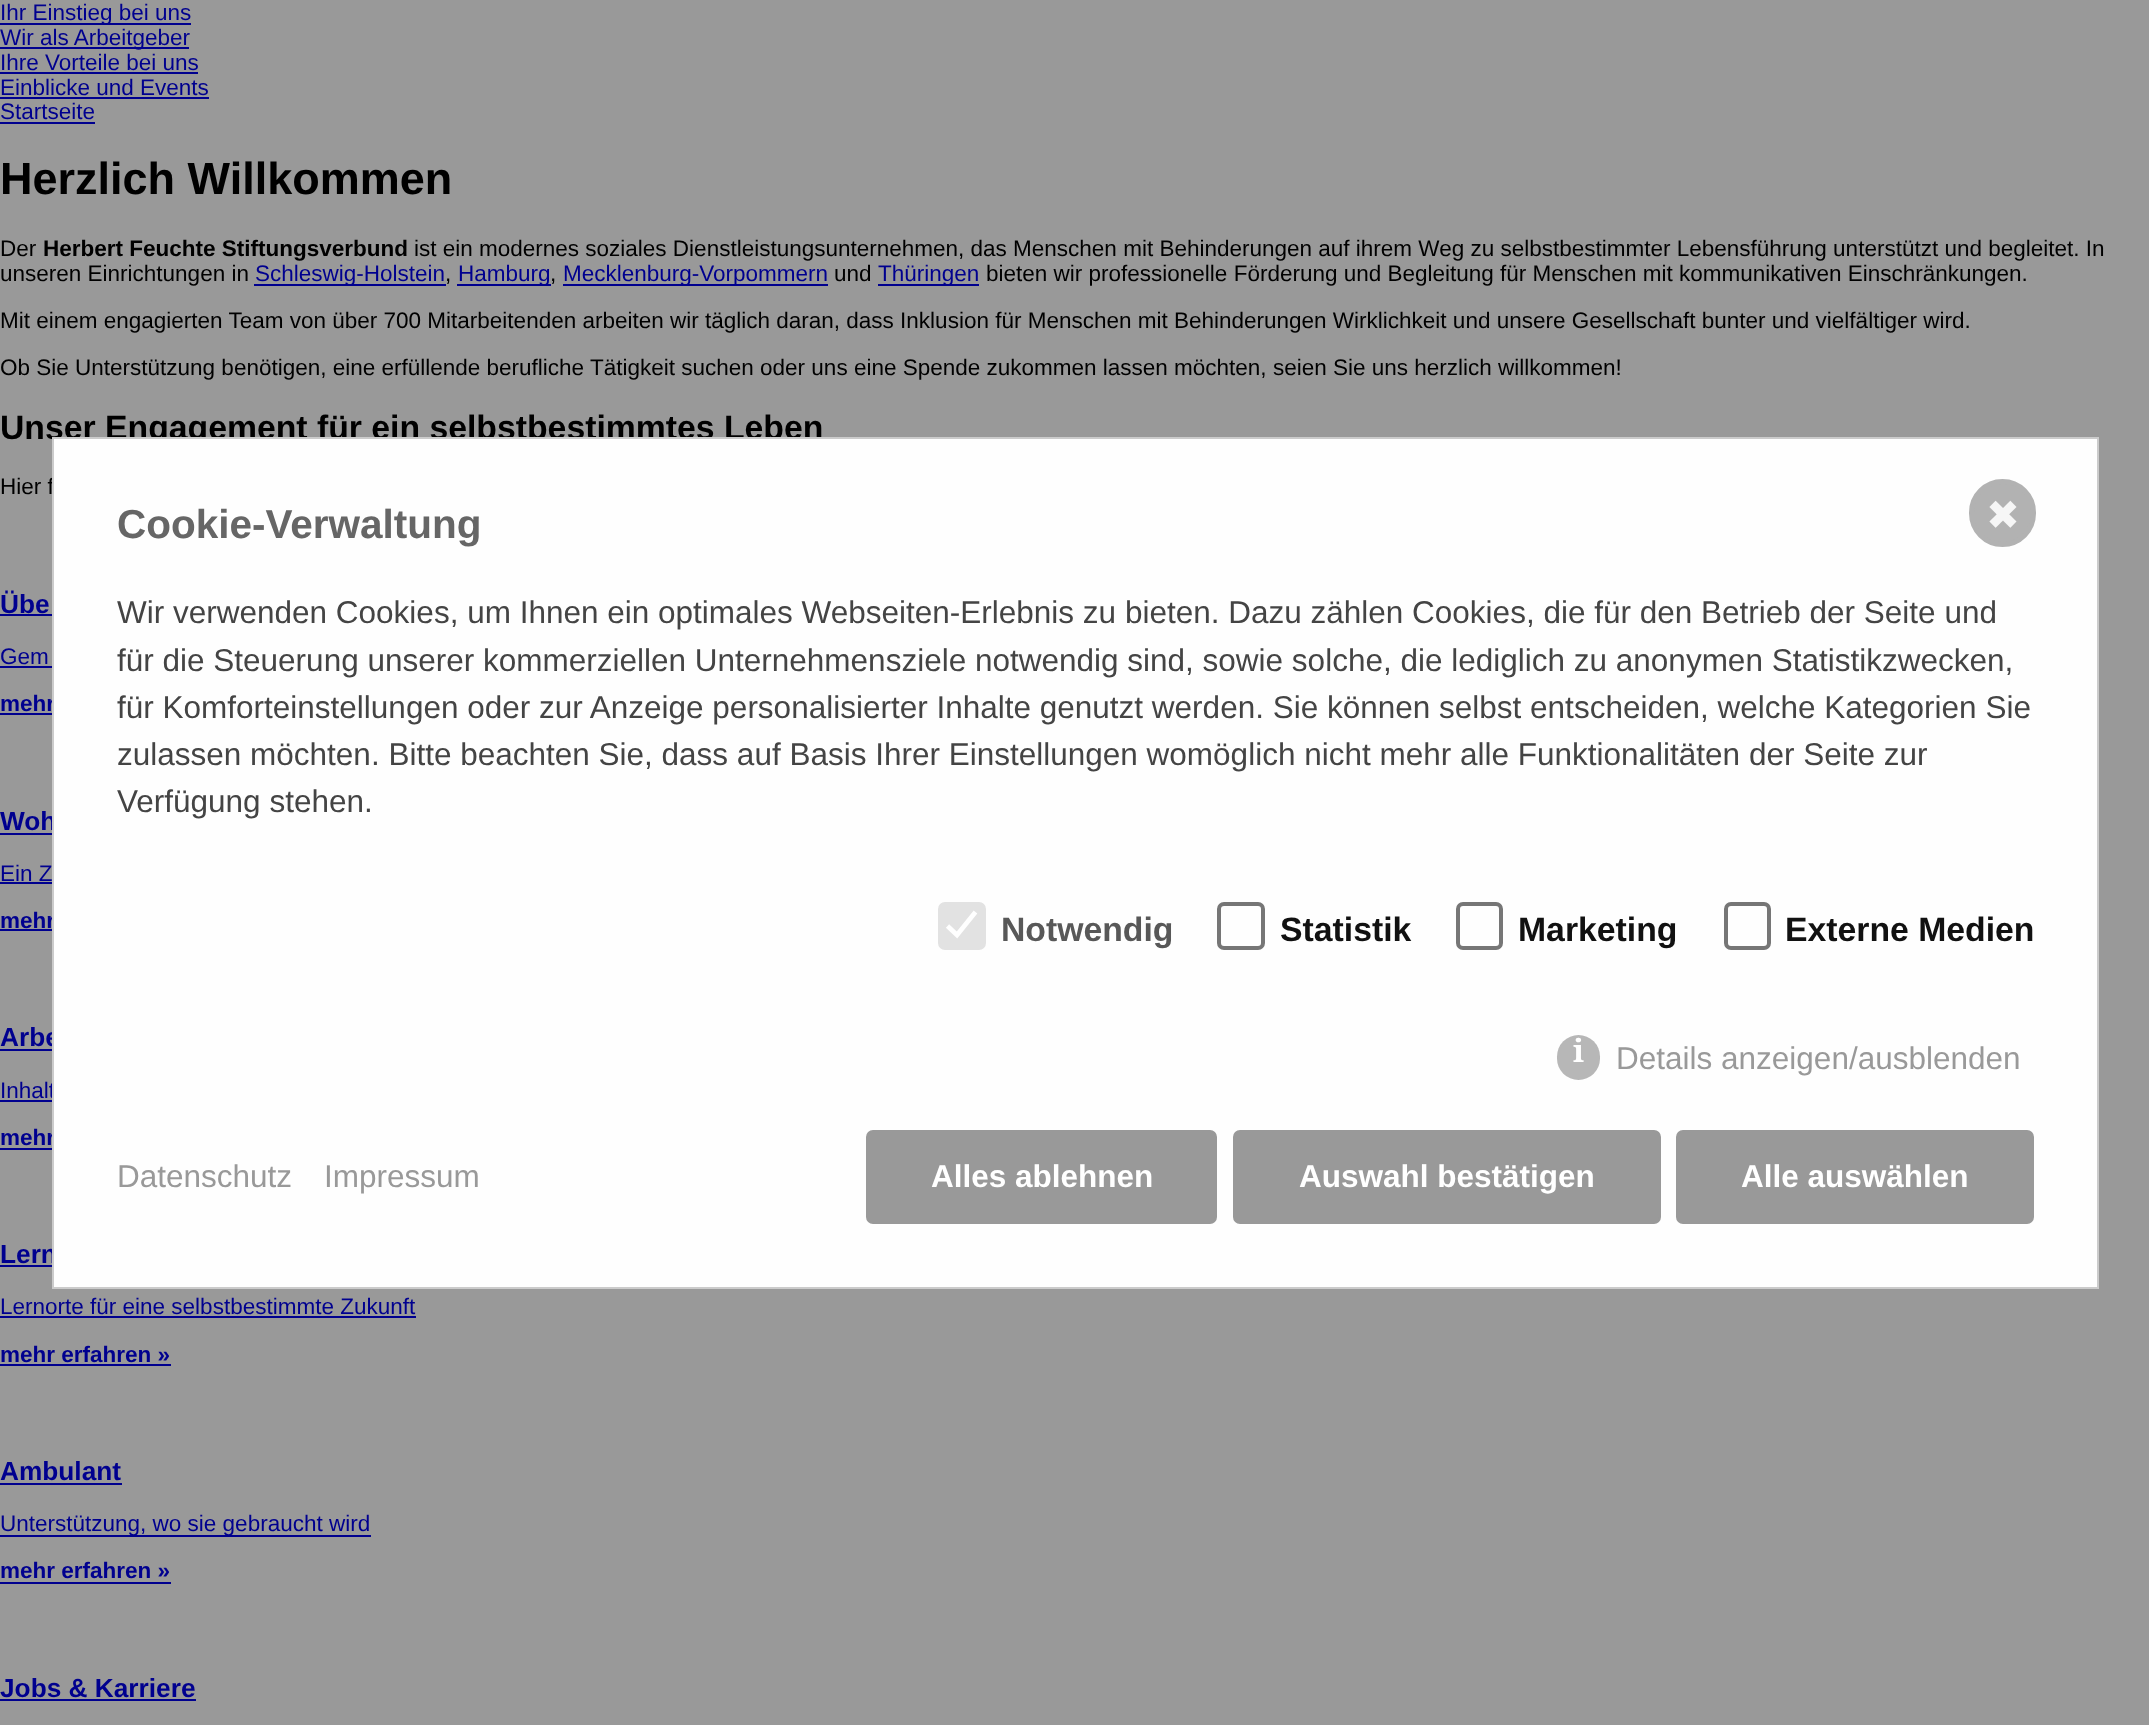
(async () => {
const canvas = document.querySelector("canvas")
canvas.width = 2149
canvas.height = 1725
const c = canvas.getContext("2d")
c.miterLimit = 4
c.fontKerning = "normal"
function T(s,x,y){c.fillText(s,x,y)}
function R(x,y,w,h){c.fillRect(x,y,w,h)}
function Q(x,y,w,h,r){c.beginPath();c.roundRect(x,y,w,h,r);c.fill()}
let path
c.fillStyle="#999"
R(0,0,2149,1725)
c.fillStyle="#00008f"
R(0,23,191,2)
c.font="22.5px Liberation Sans"
T("Ihr Einstieg bei uns",0,20)
R(0,47,189,2)
T("Wir als Arbeitgeber",0,45)
T("Ihre Vorteile bei uns",0,70)
R(0,72,198,2)
T("Einblicke und Events",0,95)
R(0,97,209,2)
T("Startseite",0,119)
R(0,122,95,2)
c.font="bold 45px Liberation Sans"
c.fillStyle="#000"
T("Herzlich Willkommen",0,194)
c.font="22.5px Liberation Sans"
T("Der",0,256)
c.font="bold 22.5px Liberation Sans"
T("Herbert Feuchte Stiftungsverbund",43,256)
c.font="22.5px Liberation Sans"
T("ist ein modernes soziales Dienstleistungsunternehmen, das Menschen mit Behinderungen auf ihrem Weg zu selbstbestimmter Lebensführung unterstützt und begleitet. In",414,256)
T("unseren Einrichtungen in",0,281)
c.fillStyle="#00008f"
R(254,284,192,2)
T("Schleswig-Holstein",255,281)
c.fillStyle="#000"
T(",",445,281)
c.fillStyle="#00008f"
R(457,284,94,2)
T("Hamburg",458,281)
c.fillStyle="#000"
T(",",550,281)
c.fillStyle="#00008f"
R(563,284,265,2)
T("Mecklenburg-Vorpommern",563,281)
c.fillStyle="#000"
T("und",834,281)
c.fillStyle="#00008f"
R(878,284,101,2)
T("Thüringen",878,281)
c.fillStyle="#000"
T("bieten wir professionelle Förderung und Begleitung für Menschen mit kommunikativen Einschränkungen.",986,281)
T("Mit einem engagierten Team von über 700 Mitarbeitenden arbeiten wir täglich daran, dass Inklusion für Menschen mit Behinderungen Wirklichkeit und unsere Gesellschaft bunter und vielfältiger wird.",0,328)
T("Ob Sie Unterstützung benötigen, eine erfüllende berufliche Tätigkeit suchen oder uns eine Spende zukommen lassen möchten, seien Sie uns herzlich willkommen!",0,375)
c.font="bold 33.75px Liberation Sans"
T("Unser Engagement für ein selbstbestimmtes Leben",0,439)
c.font="22.5px Liberation Sans"
T("Hier f",0,494)
c.font="bold 26.25px Liberation Sans"
c.fillStyle="#00008f"
T("Übe",0,613)
R(0,614,52,2)
c.font="22.5px Liberation Sans"
T("Gem",0,664)
R(0,666,52,2)
c.font="bold 22.5px Liberation Sans"
T("mehr",0,711)
R(0,713,52,2)
c.font="bold 26.25px Liberation Sans"
T("Woh",0,830)
R(0,833,52,2)
c.font="22.5px Liberation Sans"
T("Ein Z",0,881)
R(0,882,52,2)
c.font="bold 22.5px Liberation Sans"
T("mehr",0,928)
R(0,929,52,2)
c.font="bold 26.25px Liberation Sans"
T("Arbe",0,1046)
R(0,1049,52,2)
c.font="22.5px Liberation Sans"
T("Inhalt",0,1098)
R(0,1100,52,2)
c.font="bold 22.5px Liberation Sans"
T("mehr",0,1145)
R(0,1148,52,2)
c.font="bold 26.25px Liberation Sans"
T("Lern",0,1263)
R(0,1265,52,2)
c.font="22.5px Liberation Sans"
T("Lernorte für eine selbstbestimmte Zukunft",0,1314)
R(0,1316,416,2)
c.font="bold 22.5px Liberation Sans"
T("mehr erfahren »",0,1362)
R(0,1364,171,2)
c.font="bold 26.25px Liberation Sans"
T("Ambulant",0,1480)
R(0,1483,122,2)
R(0,1535,371,2)
c.font="22.5px Liberation Sans"
T("Unterstützung, wo sie gebraucht wird",0,1531)
c.font="bold 22.5px Liberation Sans"
T("mehr erfahren »",0,1578)
R(0,1582,171,2)
c.font="bold 26.25px Liberation Sans"
T("Jobs & Karriere",0,1697)
R(0,1699,196,2)
c.fillStyle="#fefefe"
c.beginPath()
c.rect(53,438,2045,850)
c.fill()
c.strokeStyle="#cbcbcb"
c.lineWidth=2
c.stroke()
c.fillStyle="#b2b2b2"
c.beginPath()
c.roundRect(1971.5,481.5,62,63,31)
c.fill()
c.strokeStyle="#b2b2b2"
c.lineWidth=5
c.stroke()
c.font="40.5px DejaVu Sans"
c.fillStyle="#f6f6f6"
T("✖",1986,529)
c.font="bold 40.5px Liberation Sans"
c.fillStyle="#666"
T("Cookie-Verwaltung",117,538)
c.font="31.5px Liberation Sans"
c.fillStyle="#444"
T("Wir verwenden Cookies, um Ihnen ein optimales Webseiten-Erlebnis zu bieten. Dazu zählen Cookies, die für den Betrieb der Seite und",117,623)
T("für die Steuerung unserer kommerziellen Unternehmensziele notwendig sind, sowie solche, die lediglich zu anonymen Statistikzwecken,",117,671)
T("für Komforteinstellungen oder zur Anzeige personalisierter Inhalte genutzt werden. Sie können selbst entscheiden, welche Kategorien Sie",117,718)
T("zulassen möchten. Bitte beachten Sie, dass auf Basis Ihrer Einstellungen womöglich nicht mehr alle Funktionalitäten der Seite zur",117,765)
T("Verfügung stehen.",117,812)
c.fillStyle="#e2e2e2"
Q(938,902,48,48,7)
path = new Path2D("M947.5 926l9.5 9l18.5-23")
c.strokeStyle="#fff"
c.lineWidth=4.7
c.stroke(path)
c.font="bold 33.75px Liberation Sans"
c.fillStyle="#585858"
T("Notwendig",1001,941)
c.beginPath()
c.roundRect(1219,904,44,44,5)
c.strokeStyle="#767676"
c.lineWidth=4
c.stroke()
c.fillStyle="#111"
T("Statistik",1280,941)
c.beginPath()
c.roundRect(1458,904,43,44,5)
c.stroke()
T("Marketing",1518,941)
c.beginPath()
c.roundRect(1726,904,43,44,5)
c.stroke()
T("Externe Medien",1785,941)
c.fillStyle="#b7b7b7"
Q(1557,1035,43,45,21.5)
c.font="bold 31.5px Noto Serif"
c.fillStyle="#fff"
T("i",1573,1062)
c.font="31.5px Liberation Sans"
c.fillStyle="#999"
T("Details anzeigen/ausblenden",1616,1069)
T("Datenschutz",117,1187)
T("Impressum",324,1187)
c.beginPath()
c.roundRect(867,1131,349,92,6)
c.fill()
c.strokeStyle="#999"
c.lineWidth=2
c.stroke()
c.font="bold 31.5px Liberation Sans"
c.fillStyle="#fff"
T("Alles ablehnen",931,1187)
c.fillStyle="#999"
c.beginPath()
c.roundRect(1234,1131,426,92,6)
c.fill()
c.stroke()
c.fillStyle="#fff"
T("Auswahl bestätigen",1299,1187)
c.fillStyle="#999"
c.beginPath()
c.roundRect(1677,1131,356,92,6)
c.fill()
c.stroke()
c.fillStyle="#fff"
T("Alle auswählen",1741,1187)
})()
